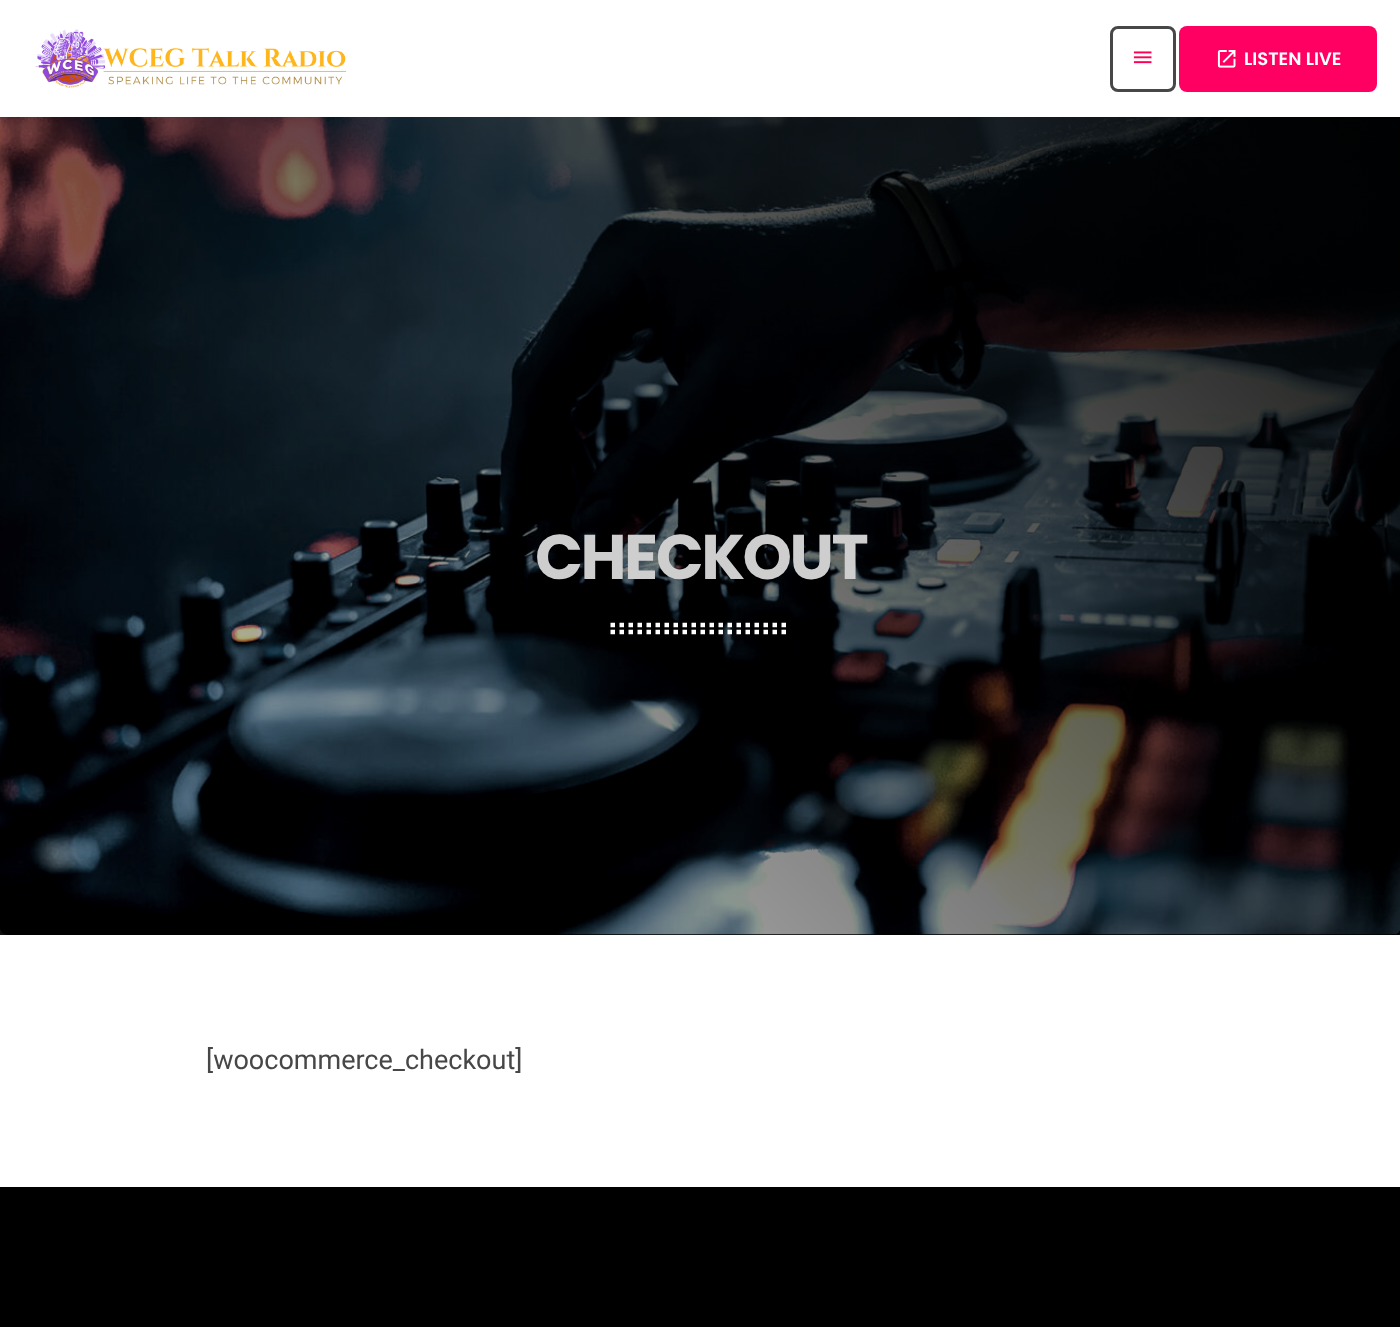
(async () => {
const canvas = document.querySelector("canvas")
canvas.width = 1400
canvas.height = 1327
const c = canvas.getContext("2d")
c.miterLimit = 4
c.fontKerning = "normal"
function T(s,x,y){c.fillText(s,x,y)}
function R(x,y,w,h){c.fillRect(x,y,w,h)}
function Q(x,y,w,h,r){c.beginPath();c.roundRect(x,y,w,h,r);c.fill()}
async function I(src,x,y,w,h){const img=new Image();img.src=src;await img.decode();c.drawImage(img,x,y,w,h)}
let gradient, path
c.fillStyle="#101212"
R(0,0,1400,1327)
c.fillStyle="#000"
Q(0,0,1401,935,8)
c.fillStyle="#fff"
R(0,0,1400,117)
await I("1.png",35,29,312,59)
c.beginPath()
c.roundRect(1111.5,27.5,63,63,6.5)
c.strokeStyle="#474747"
c.lineWidth=3
c.stroke()
await I("2.png",1133,51,19,13)
c.fillStyle="#ff0062"
Q(1179,26,198,66,8)
await I("3.png",1217,50,19,18)
c.font="600 18px Poppins"
c.fillStyle="#fff"
T("LISTEN LIVE",1244,65)
await I("4.png",0,117,1400,818)
gradient = c.createLinearGradient(117,1051,1284,-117)
gradient.addColorStop(0,"#00000021")
gradient.addColorStop(1,"#000")
c.fillStyle = gradient
R(0,117,1400,818)
c.letterSpacing="-2.5px"
c.font="bold 63px Poppins"
c.fillStyle="#cecece"
T("CHECKOUT",535,579)
path = new Path2D("M610.5 625h180")
c.strokeStyle="#fff"
c.lineWidth=4.5
c.setLineDash([4.5,4.5])
c.stroke(path)
path = new Path2D("M610.5 632h180")
c.stroke(path)
c.fillStyle="#fff"
R(0,935,1400,252)
c.letterSpacing="0px"
c.font="27px Roboto"
c.fillStyle="#474747"
T("[woocommerce_checkout]",206,1069)
c.fillStyle="#000"
R(0,1187,1400,140)
})()
